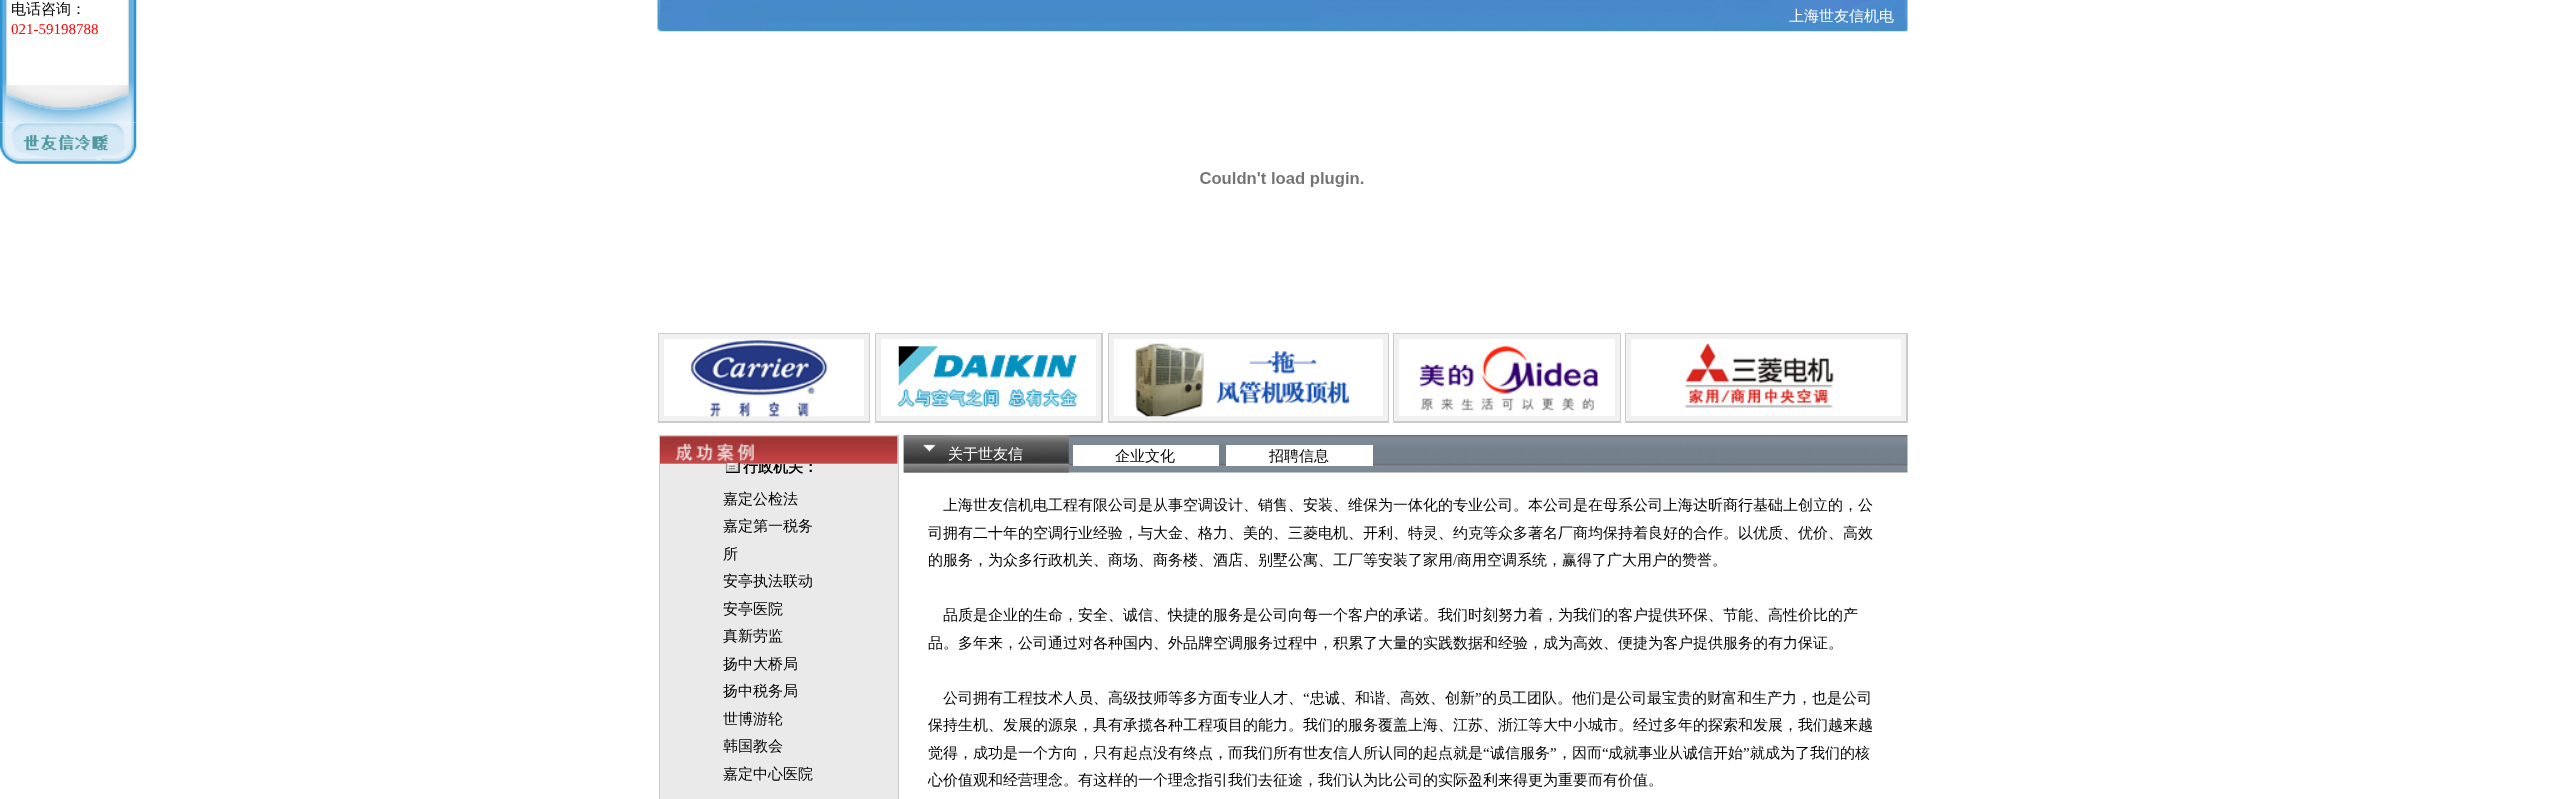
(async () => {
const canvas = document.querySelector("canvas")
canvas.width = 2563
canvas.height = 799
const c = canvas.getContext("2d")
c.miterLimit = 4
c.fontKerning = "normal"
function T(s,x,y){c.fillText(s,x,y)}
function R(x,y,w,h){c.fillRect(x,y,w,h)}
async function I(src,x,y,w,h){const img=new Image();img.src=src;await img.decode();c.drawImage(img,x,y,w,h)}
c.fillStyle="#fff"
R(0,0,2563,799)
await I("1.png",0,0,8,85)
c.font="500 15px WenQuanYi Zen Hei"
c.fillStyle="#000"
T("电话咨询：",11,14)
c.font="15px Liberation Serif"
c.fillStyle="#f00"
T("021-59198788",11,34)
await I("2.png",127,0,10,85)
await I("3.png",0,85,137,38)
await I("4.png",0,122,137,42)
await I("5.png",657,0,1251,32)
c.font="500 15px WenQuanYi Zen Hei"
c.fillStyle="#fff"
T("上海世友信机电",1789,21)
await I("6.png",1200,172,164,15)
c.fillStyle="#ccc"
R(658,333,212,90)
c.fillStyle="#f1f1f1"
R(659,334,210,87)
c.fillStyle="#fff"
R(664,339,200,77)
await I("7.png",690,339,138,78)
c.fillStyle="#ccc"
R(875,333,228,90)
c.fillStyle="#f1f1f1"
R(876,334,225,87)
c.fillStyle="#fff"
R(881,339,215,77)
await I("8.png",897,346,181,62)
c.fillStyle="#ccc"
R(1108,333,281,90)
c.fillStyle="#f1f1f1"
R(1109,334,279,87)
c.fillStyle="#fff"
R(1114,339,269,77)
await I("9.png",1134,343,217,74)
c.fillStyle="#ccc"
R(1393,333,228,90)
c.fillStyle="#f1f1f1"
R(1394,334,226,87)
c.fillStyle="#fff"
R(1399,339,216,77)
await I("10.png",1419,345,179,66)
c.fillStyle="#ccc"
R(1625,333,283,90)
c.fillStyle="#f1f1f1"
R(1626,334,280,87)
c.fillStyle="#fff"
R(1631,339,270,77)
await I("11.png",1685,343,149,65)
c.fillStyle="#ccc"
R(659,435,240,364)
c.fillStyle="#fff"
R(660,436,238,28)
await I("12.png",660,436,238,28)
c.fillStyle="#eaeaea"
R(660,464,238,335)
await I("13.png",725,463,15,10)
c.save()
c.beginPath()
c.rect(666,464,225,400)
c.clip()
c.font="bold 15px WenQuanYi Zen Hei"
c.fillStyle="#000"
T("行政机关：",743,472)
c.restore()
c.fillStyle="#000"
T("嘉定公检法",723,504)
T("嘉定第一税务",723,531)
T("所",723,559)
T("安亭执法联动",723,586)
T("安亭医院",723,614)
T("真新劳监",723,641)
T("扬中大桥局",723,669)
T("扬中税务局",723,696)
T("世博游轮",723,724)
T("韩国教会",723,751)
T("嘉定中心医院",723,779)
await I("14.png",903,435,1005,38)
await I("15.png",903,435,166,38)
c.fillStyle="#fff"
T("关于世友信",948,459)
R(1073,445,146,21)
c.fillStyle="#000"
T("企业文化",1115,461)
c.fillStyle="#fff"
R(1226,445,147,21)
c.fillStyle="#000"
T("招聘信息",1269,461)
T("上海世友信机电工程有限公司是从事空调设计、销售、安装、维保为一体化的专业公司。本公司是在母系公司上海达昕商行基础上创立的，公",943,510)
T("司拥有二十年的空调行业经验，与大金、格力、美的、三菱电机、开利、特灵、约克等众多著名厂商均保持着良好的合作。以优质、优价、高效",928,538)
T("的服务，为众多行政机关、商场、商务楼、酒店、别墅公寓、工厂等安装了家用",928,565)
c.font="15px Liberation Serif"
T("/",1453,565)
c.font="500 15px WenQuanYi Zen Hei"
T("商用空调系统，赢得了广大用户的赞誉。",1457,565)
T("品质是企业的生命，安全、诚信、快捷的服务是公司向每一个客户的承诺。我们时刻努力着，为我们的客户提供环保、节能、高性价比的产",943,620)
T("品。多年来，公司通过对各种国内、外品牌空调服务过程中，积累了大量的实践数据和经验，成为高效、便捷为客户提供服务的有力保证。",928,648)
T("公司拥有工程技术人员、高级技师等多方面专业人才、",943,703)
c.font="15px Liberation Serif"
T("“",1303,703)
c.font="500 15px WenQuanYi Zen Hei"
T("忠诚、和谐、高效、创新",1310,703)
c.font="15px Liberation Serif"
T("”",1475,703)
c.font="500 15px WenQuanYi Zen Hei"
T("的员工团队。他们是公司最宝贵的财富和生产力，也是公司",1482,703)
T("保持生机、发展的源泉，具有承揽各种工程项目的能力。我们的服务覆盖上海、江苏、浙江等大中小城市。经过多年的探索和发展，我们越来越",928,730)
T("觉得，成功是一个方向，只有起点没有终点，而我们所有世友信人所认同的起点就是",928,758)
c.font="15px Liberation Serif"
T("“",1483,758)
c.font="500 15px WenQuanYi Zen Hei"
T("诚信服务",1490,758)
c.font="15px Liberation Serif"
T("”",1550,758)
c.font="500 15px WenQuanYi Zen Hei"
T("，因而",1557,758)
c.font="15px Liberation Serif"
T("“",1602,758)
c.font="500 15px WenQuanYi Zen Hei"
T("成就事业从诚信开始",1608,758)
c.font="15px Liberation Serif"
T("”",1743,758)
c.font="500 15px WenQuanYi Zen Hei"
T("就成为了我们的核",1750,758)
T("心价值观和经营理念。有这样的一个理念指引我们去征途，我们认为比公司的实际盈利来得更为重要而有价值。",928,785)
})()
